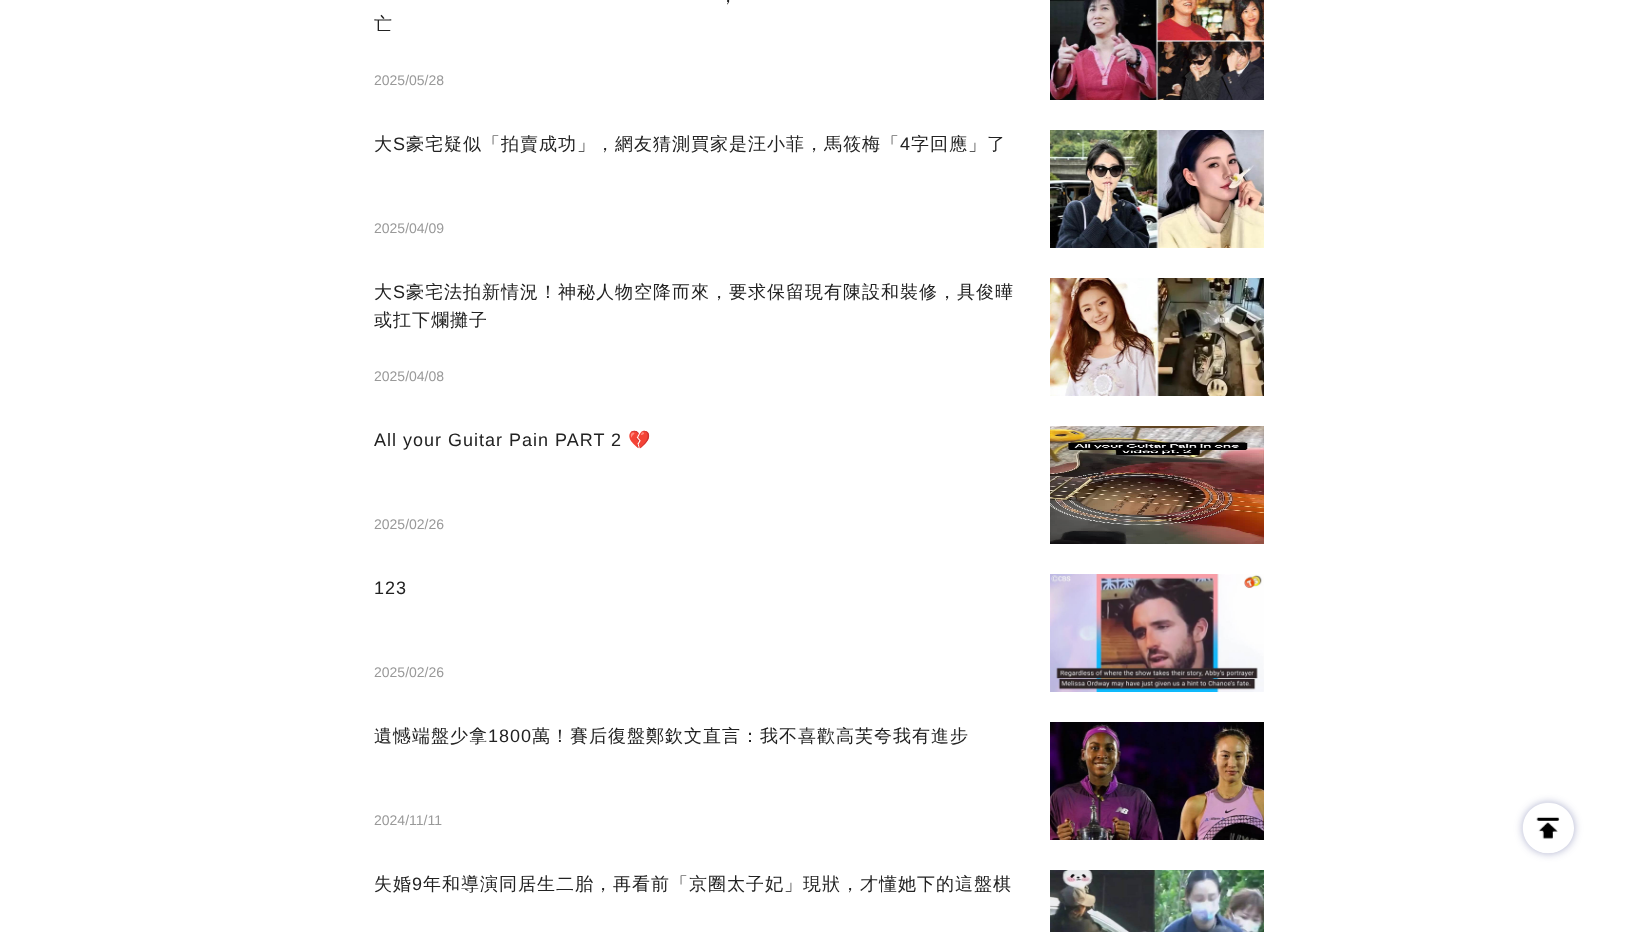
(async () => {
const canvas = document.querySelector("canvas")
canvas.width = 1638
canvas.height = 932
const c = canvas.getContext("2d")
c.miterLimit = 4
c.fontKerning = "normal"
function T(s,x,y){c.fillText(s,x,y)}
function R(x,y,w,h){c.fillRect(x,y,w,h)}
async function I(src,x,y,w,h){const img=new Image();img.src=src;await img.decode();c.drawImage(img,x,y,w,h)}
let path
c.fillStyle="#fff"
R(0,0,1638,932)
c.letterSpacing="1px"
c.font="500 18px WenQuanYi Zen Hei"
c.fillStyle="#222"
T("，",719,2)
T("亡",374,30)
c.letterSpacing="0px"
c.font="14px Liberation Sans"
c.fillStyle="#999"
T("2025/05/28",374,85)
await I("1.png",1050,0,214,100)
c.letterSpacing="1px"
c.font="500 18px WenQuanYi Zen Hei"
c.fillStyle="#222"
T("大",374,150)
c.font="18px Liberation Sans"
T("S",393,150)
c.font="500 18px WenQuanYi Zen Hei"
T("豪宅疑似「拍賣成功」，網友猜測買家是汪小菲，馬筱梅「",406,150)
c.font="18px Liberation Sans"
T("4",900,150)
c.font="500 18px WenQuanYi Zen Hei"
T("字回應」了",911,150)
c.letterSpacing="0px"
c.font="14px Liberation Sans"
c.fillStyle="#999"
T("2025/04/09",374,233)
await I("2.png",1050,130,214,118)
c.letterSpacing="1px"
c.font="500 18px WenQuanYi Zen Hei"
c.fillStyle="#222"
T("大",374,298)
c.font="18px Liberation Sans"
T("S",393,298)
c.font="500 18px WenQuanYi Zen Hei"
T("豪宅法拍新情況！神秘人物空降而來，要求保留現有陳設和裝修，具俊曄",406,298)
T("或扛下爛攤子",374,326)
c.letterSpacing="0px"
c.font="14px Liberation Sans"
c.fillStyle="#999"
T("2025/04/08",374,381)
await I("3.png",1050,278,214,118)
c.letterSpacing="1px"
c.font="18px Liberation Sans"
c.fillStyle="#222"
T("All your Guitar Pain PART 2",374,446)
c.font="18px Noto Color Emoji"
T("💔",628,446)
c.letterSpacing="0px"
c.font="14px Liberation Sans"
c.fillStyle="#999"
T("2025/02/26",374,529)
await I("4.png",1050,426,214,118)
c.letterSpacing="1px"
c.font="18px Liberation Sans"
c.fillStyle="#222"
T("123",374,594)
c.letterSpacing="0px"
c.font="14px Liberation Sans"
c.fillStyle="#999"
T("2025/02/26",374,677)
await I("5.png",1050,574,214,118)
c.letterSpacing="1px"
c.font="500 18px WenQuanYi Zen Hei"
c.fillStyle="#222"
T("遺憾端盤少拿",374,742)
c.font="18px Liberation Sans"
T("1800",488,742)
c.font="500 18px WenQuanYi Zen Hei"
T("萬！賽后復盤鄭欽文直言：我不喜歡高芙夸我有進步",532,742)
c.letterSpacing="0px"
c.font="14px Liberation Sans"
c.fillStyle="#999"
T("2024/11/11",374,825)
await I("6.png",1050,722,214,118)
c.letterSpacing="1px"
c.font="500 18px WenQuanYi Zen Hei"
c.fillStyle="#222"
T("失婚",374,890)
c.font="18px Liberation Sans"
T("9",412,890)
c.font="500 18px WenQuanYi Zen Hei"
T("年和導演同居生二胎，再看前「京圈太子妃」現狀，才懂她下的這盤棋",423,890)
await I("7.png",1050,870,214,62)
c.save()
path = new Path2D("M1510 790h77v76h-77zm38 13h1c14 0 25 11 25 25c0 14-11 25-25 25h-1c-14 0-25-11-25-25c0-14 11-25 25-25z")
c.clip(path,"evenodd")
c.fillStyle="#222a7766"
c.filter="blur(4px)"
c.beginPath()
c.roundRect(1523,803,51,50,25)
c.fill()
c.filter="none"
c.restore()
await I("8.png",1522,802,38,52)
})()
